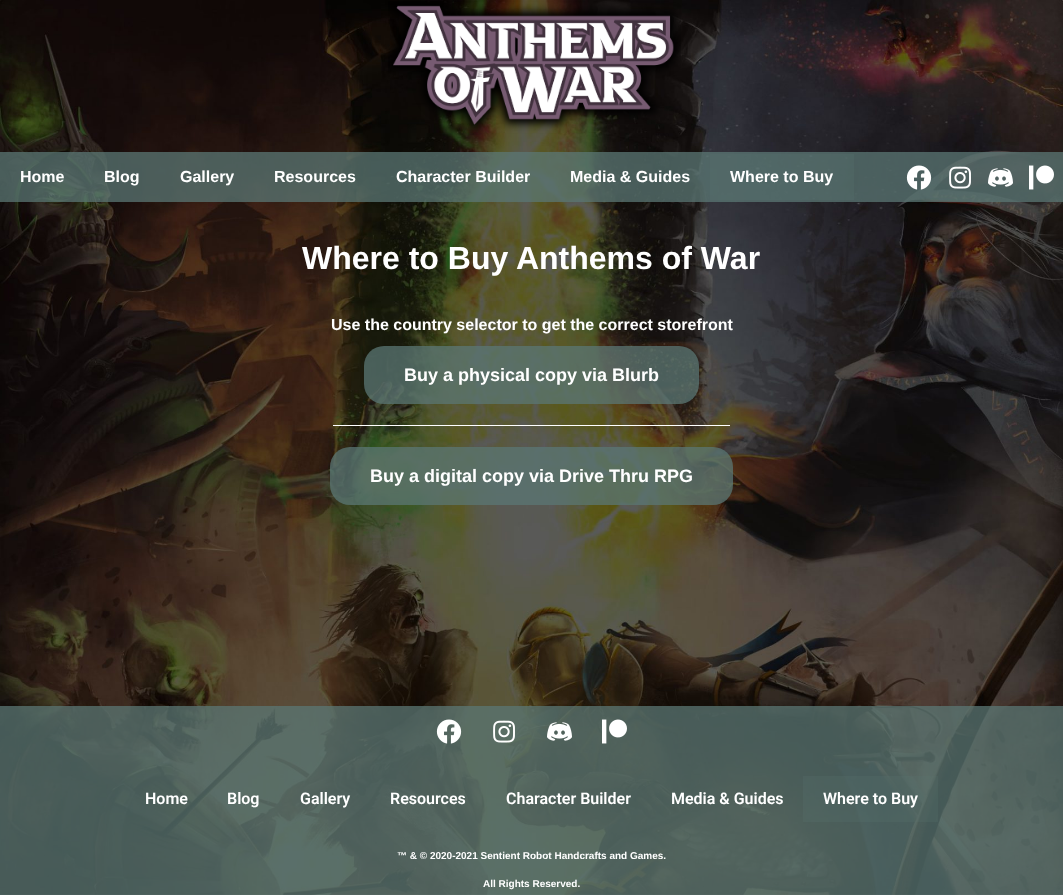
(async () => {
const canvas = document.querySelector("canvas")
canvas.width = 1063
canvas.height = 895
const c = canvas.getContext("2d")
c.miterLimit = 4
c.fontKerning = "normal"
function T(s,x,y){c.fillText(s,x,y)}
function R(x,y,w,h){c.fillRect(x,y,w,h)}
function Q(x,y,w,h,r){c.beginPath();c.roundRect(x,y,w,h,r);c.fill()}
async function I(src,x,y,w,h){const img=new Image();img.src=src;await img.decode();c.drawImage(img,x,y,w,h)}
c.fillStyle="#fff"
R(0,0,1063,895)
await I("1.png",0,0,1063,895)
await I("2.png",388,1,293,134)
c.fillStyle="#5b7774bf"
R(0,152,1063,50)
c.font="bold 16px Liberation Sans"
c.fillStyle="#fff"
T("Home",20,182)
T("Blog",104,182)
T("Gallery",180,182)
T("Resources",274,182)
T("Character Builder",396,182)
T("Media & Guides",570,182)
c.fillStyle="#5b777438"
R(710,154,144,46)
c.fillStyle="#fff"
T("Where to Buy",730,182)
await I("3.png",906,165,26,25)
await I("4.png",949,166,22,23)
await I("5.png",988,168,25,19)
await I("6.png",1029,165,25,25)
c.font="bold 32px Liberation Sans"
T("Where to Buy Anthems of War",302,269)
c.font="bold 16px Liberation Sans"
T("Use the country selector to get the correct storefront",331,330)
c.fillStyle="#5b7774bf"
Q(364,346,335,58,20)
c.font="bold 18px Liberation Sans"
c.fillStyle="#fff"
T("Buy a physical copy via Blurb",404,381)
R(333,425,397,1)
c.fillStyle="#5b7774bf"
Q(330,447,403,58,20)
c.fillStyle="#fff"
T("Buy a digital copy via Drive Thru RPG",370,482)
c.fillStyle="#5b7774bf"
R(0,706,1063,189)
await I("7.png",436,719,26,25)
await I("8.png",493,720,22,23)
await I("9.png",547,722,25,19)
await I("10.png",602,719,25,25)
c.font="600 16px Roboto"
c.fillStyle="#fff"
T("Home",145,804)
T("Blog",227,804)
T("Gallery",300,804)
T("Resources",390,804)
T("Character Builder",506,804)
T("Media & Guides",671,804)
c.fillStyle="#5b777438"
R(803,776,135,46)
c.fillStyle="#fff"
T("Where to Buy",823,804)
c.font="bold 10px Liberation Sans"
T("™ & © 2020-2021 Sentient Robot Handcrafts and Games.",397,859)
T("All Rights Reserved.",483,887)
})()
